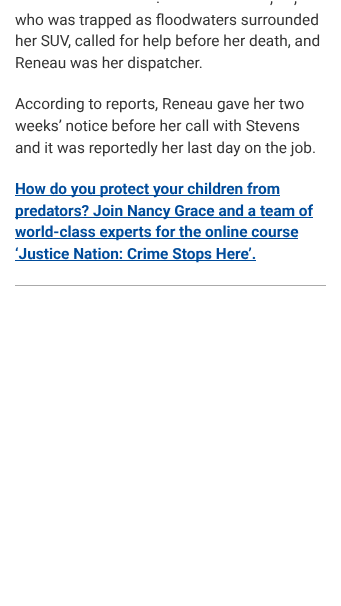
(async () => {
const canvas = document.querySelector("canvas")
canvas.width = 341
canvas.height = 606
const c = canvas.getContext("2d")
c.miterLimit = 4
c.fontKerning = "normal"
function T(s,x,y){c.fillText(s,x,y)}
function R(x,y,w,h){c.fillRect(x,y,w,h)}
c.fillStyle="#fff"
R(0,0,341,606)
c.font="15.4px Roboto"
c.fillStyle="#333"
T(".",156,3)
T(",",270,3)
T(",",294,3)
T("who was trapped as floodwaters surrounded",15,25)
T("her SUV, called for help before her death, and",15,46)
T("Reneau was her dispatcher.",15,68)
T("According to reports, Reneau gave her two",15,109)
T("weeks’ notice before her call with Stevens",15,131)
T("and it was reportedly her last day on the job.",15,153)
c.fillStyle="#004c9b"
R(15,195,265,1)
c.font="bold 15.4px Roboto"
T("How do you protect your children from",15,194)
R(15,217,298,1)
T("predators? Join Nancy Grace and a team of",15,216)
R(15,238,283,1)
T("world-class experts for the online course",15,237)
R(15,260,241,1)
T("‘Justice Nation: Crime Stops Here’.",15,259)
c.fillStyle="#aaa"
R(15,285,311,1)
})()
